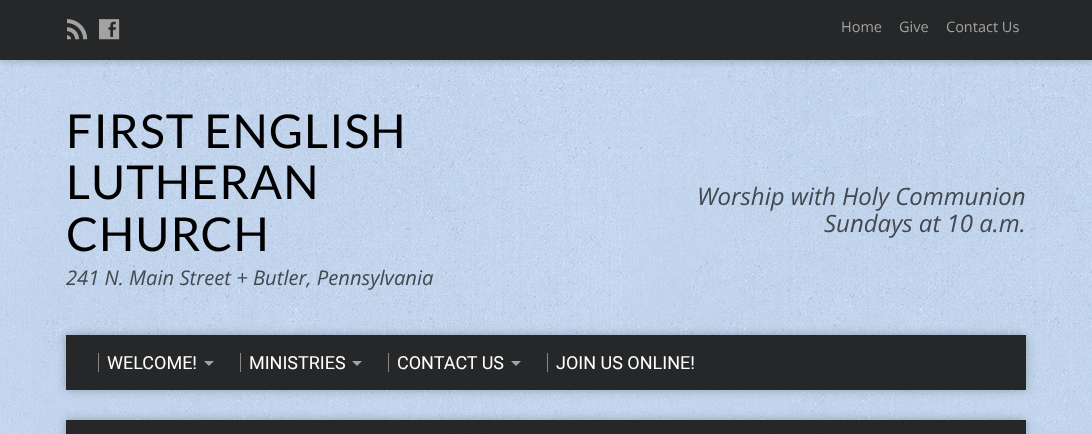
(async () => {
const canvas = document.querySelector("canvas")
canvas.width = 1092
canvas.height = 434
const c = canvas.getContext("2d")
c.miterLimit = 4
c.fontKerning = "normal"
function T(s,x,y){c.fillText(s,x,y)}
function R(x,y,w,h){c.fillRect(x,y,w,h)}
async function I(src,x,y,w,h){const img=new Image();img.src=src;await img.decode();c.drawImage(img,x,y,w,h)}
let path
c.fillStyle="#c3ddff"
R(0,0,1092,434)
await I("1.png",0,0,1092,434)
c.save()
c.beginPath()
c.rect(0,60,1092,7)
c.clip()
c.fillStyle="#00000040"
c.filter="blur(5px)"
c.beginPath()
c.rect(0,0,1092,60)
c.fill()
c.filter="none"
c.restore()
c.fillStyle="#1c1c1cf0"
R(0,0,1092,60)
await I("2.png",67,19,21,21)
await I("3.png",99,19,21,21)
c.font="14.5px Open Sans"
c.fillStyle="#a2a2a2"
T("Home",841,32)
T("Give",899,32)
T("Contact Us",946,32)
c.letterSpacing="1px"
c.font="46.75px Lato"
c.fillStyle="#000"
T("FIRST ENGLISH",66,148)
T("LUTHERAN",66,199)
T("CHURCH",66,251)
c.letterSpacing="0px"
c.font="italic 20.2px Open Sans"
c.fillStyle="#43484e"
T("241 N. Main Street + Butler, Pennsylvania",66,285)
c.font="italic 24px Open Sans"
T("Worship with Holy Communion",697,205)
T("Sundays at 10 a.m.",824,232)
c.save()
path = new Path2D("M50 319h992v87h-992zm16 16h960v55h-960z")
c.clip(path,"evenodd")
c.fillStyle="#00000040"
c.filter="blur(5px)"
c.beginPath()
c.rect(66,335,960,55)
c.fill()
c.filter="none"
c.restore()
c.fillStyle="#1c1c1cf0"
R(66,335,960,55)
c.fillStyle="#868686"
R(98,353,1,19)
c.font="18px Roboto"
c.fillStyle="#fff"
T("WELCOME!",107,369)
c.fillStyle="#a2a2a2"
path = new Path2D("M204 361h10l-5 5z")
c.fill(path)
c.fillStyle="#868686"
R(240,353,1,19)
c.fillStyle="#fff"
T("MINISTRIES",249,369)
c.fillStyle="#a2a2a2"
path = new Path2D("M352 361h10l-5 5z")
c.fill(path)
c.fillStyle="#868686"
R(388,353,1,19)
c.fillStyle="#fff"
T("CONTACT US",397,369)
c.fillStyle="#a2a2a2"
path = new Path2D("M511 361h10l-5 5z")
c.fill(path)
c.fillStyle="#868686"
R(547,353,1,19)
c.fillStyle="#fff"
T("JOIN US ONLINE!",556,369)
c.save()
path = new Path2D("M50 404h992v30h-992zm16 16h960v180h-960z")
c.clip(path,"evenodd")
c.fillStyle="#00000040"
c.filter="blur(5px)"
c.beginPath()
c.rect(66,420,960,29)
c.fill()
c.filter="none"
c.restore()
c.fillStyle="#1c1c1cf0"
R(66,420,960,14)
})()
